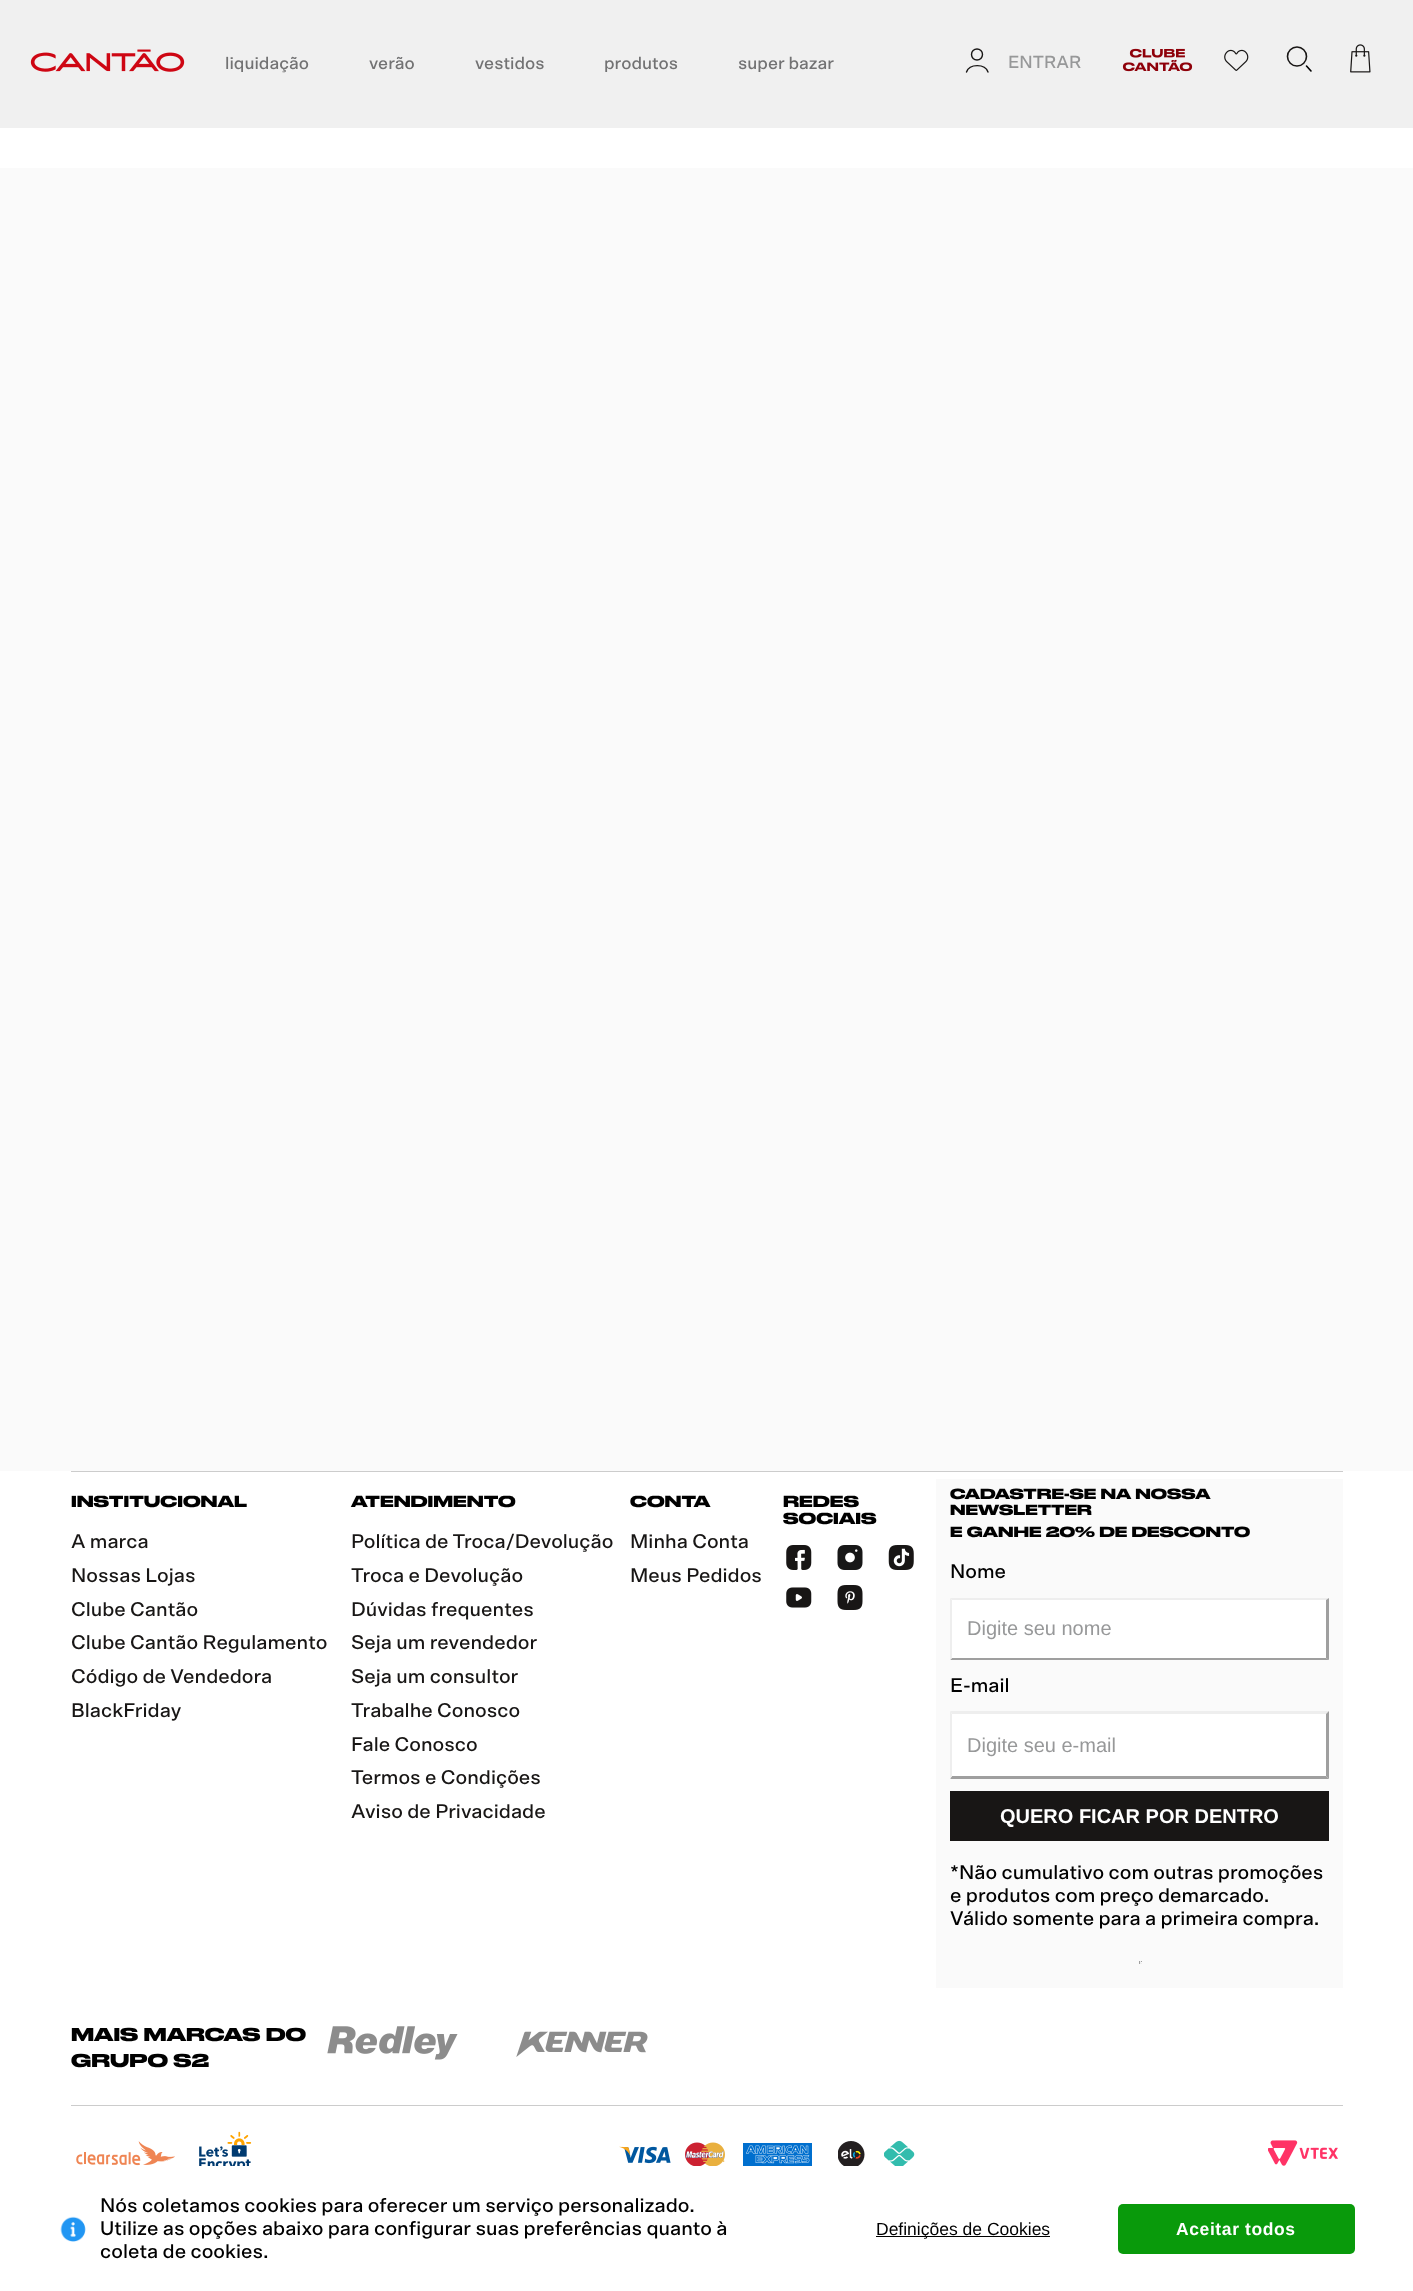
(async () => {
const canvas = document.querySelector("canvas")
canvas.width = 1413
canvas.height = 2291
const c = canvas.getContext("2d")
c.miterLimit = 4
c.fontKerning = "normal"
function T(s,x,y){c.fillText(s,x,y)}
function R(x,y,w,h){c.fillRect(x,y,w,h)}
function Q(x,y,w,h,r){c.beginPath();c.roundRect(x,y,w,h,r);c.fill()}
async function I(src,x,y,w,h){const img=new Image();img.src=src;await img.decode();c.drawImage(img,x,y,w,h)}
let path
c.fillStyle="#fafafa"
R(0,0,1413,2291)
c.fillStyle="#f0f0f0"
R(0,0,1413,128)
await I("1.png",30,49,155,23)
c.font="500 17.5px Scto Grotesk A"
c.fillStyle="#727273"
T("liquidação",225,69)
T("verão",369,69)
T("vestidos",475,69)
T("produtos",604,69)
T("super bazar",738,69)
path = new Path2D("M988 72c-3-8.5-18.5-8.5-21.5 0")
c.strokeStyle="#181615"
c.lineWidth=1.4
c.lineCap="round"
c.stroke(path)
c.beginPath()
c.arc(977,54.5,5.5,0,7)
c.stroke()
c.fillStyle="#979899"
T("ENTRAR",1008,68)
await I("2.png",1122,48,71,24)
await I("3.png",1224,49,25,22)
c.beginPath()
c.arc(1297,56.5,9.5,0,7)
c.lineWidth=1.6
c.stroke()
path = new Path2D("M1311 71l-4.5-5")
c.strokeStyle="#000"
c.stroke(path)
await I("4.png",1350,44,21,29)
c.fillStyle="#fff"
R(0,128,1413,40)
R(0,1471,1413,820)
c.fillStyle="#ccc"
R(71,1471,1272,1)
c.font="bold 15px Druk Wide"
c.fillStyle="#000"
T("INSTITUCIONAL",71,1507)
c.font="500 20px Scto Grotesk A"
c.fillStyle="#181615"
T("A marca",71,1548)
T("Nossas Lojas",71,1582)
T("Clube Cantão",71,1616)
T("Clube Cantão Regulamento",71,1649)
T("Código de Vendedora",71,1683)
T("BlackFriday",71,1717)
c.font="bold 15px Druk Wide"
c.fillStyle="#000"
T("ATENDIMENTO",351,1507)
c.font="500 20px Scto Grotesk A"
c.fillStyle="#181615"
T("Política de Troca/Devolução",351,1548)
T("Troca e Devolução",351,1582)
T("Dúvidas frequentes",351,1616)
T("Seja um revendedor",351,1649)
T("Seja um consultor",351,1683)
T("Trabalhe Conosco",351,1717)
T("Fale Conosco",351,1751)
T("Termos e Condições",351,1784)
T("Aviso de Privacidade",351,1818)
c.font="bold 15px Druk Wide"
c.fillStyle="#000"
T("CONTA",630,1507)
c.font="500 20px Scto Grotesk A"
c.fillStyle="#181615"
T("Minha Conta",630,1548)
T("Meus Pedidos",630,1582)
c.font="bold 15px Druk Wide"
c.fillStyle="#000"
T("REDES",783,1507)
T("SOCIAIS",783,1524)
await I("5.png",786,1545,26,25)
await I("6.png",837,1545,26,25)
await I("7.png",888,1545,26,25)
await I("8.png",786,1587,26,21)
await I("9.png",837,1585,26,25)
c.fillStyle="#fafafa"
R(936,1479,407,509)
c.font="bold 13.75px Druk Wide"
c.fillStyle="#000"
T("CADASTRE-SE NA NOSSA",950,1499)
T("NEWSLETTER",950,1515)
T("E GANHE 20% DE DESCONTO",950,1537)
c.font="500 20px Scto Grotesk A"
T("Nome",950,1578)
c.fillStyle="#fff"
R(950,1598,379,62)
c.fillStyle="#eee"
path = new Path2D("M950 1598h379l-3 2h-374z")
c.fill(path)
c.fillStyle="#9f9f9f"
path = new Path2D("M1329 1598v62l-3-2v-58z")
c.fill(path)
path = new Path2D("M1329 1660h-379l2-2h374z")
c.fill(path)
c.fillStyle="#eee"
path = new Path2D("M950 1660v-62l2 2v58z")
c.fill(path)
c.font="20px Liberation Sans"
c.fillStyle="#979899"
T("Digite seu nome",967,1635)
c.font="500 20px Scto Grotesk A"
c.fillStyle="#000"
T("E-mail",950,1692)
c.fillStyle="#fff"
R(950,1711,379,68)
c.fillStyle="#eee"
path = new Path2D("M950 1711h379l-3 3h-374z")
c.fill(path)
c.fillStyle="#9f9f9f"
path = new Path2D("M1329 1711v68l-3-3v-62z")
c.fill(path)
path = new Path2D("M1329 1779h-379l2-3h374z")
c.fill(path)
c.fillStyle="#eee"
path = new Path2D("M950 1779v-68l2 3v62z")
c.fill(path)
c.font="20px Liberation Sans"
c.fillStyle="#979899"
T("Digite seu e-mail",967,1752)
c.fillStyle="#181615"
R(950,1791,379,50)
c.font="bold 20px Liberation Sans"
c.fillStyle="#fff"
T("QUERO FICAR POR DENTRO",1000,1823)
c.font="500 20px Scto Grotesk A"
c.fillStyle="#000"
T("*Não cumulativo com outras promoções",950,1879)
T("e produtos com preço demarcado.",950,1902)
T("Válido somente para a primeira compra.",950,1925)
c.fillStyle="#9f9f9f"
R(1139,1961,3,1)
c.fillStyle="#eee"
R(1140,1961,1,3)
R(1139,1963,3,1)
c.fillStyle="#9f9f9f"
R(1139,1961,1,3)
c.font="bold 17.5px Druk Wide"
c.fillStyle="#000"
T("MAIS MARCAS DO",71,2041)
T("GRUPO S2",71,2067)
await I("10.png",327,2026,131,34)
await I("11.png",516,2031,132,26)
c.fillStyle="#ccc"
R(71,2105,1272,1)
await I("12.png",76,2141,99,25)
await I("13.png",199,2131,53,35)
await I("14.png",619,2146,52,18)
await I("15.png",685,2142,40,24)
await I("16.png",743,2143,69,23)
await I("17.png",838,2141,27,25)
await I("18.png",884,2140,31,26)
await I("19.png",1268,2140,70,26)
await I("20.png",60,2216,26,26)
c.font="500 20px Scto Grotesk A"
c.fillStyle="#000"
T("Nós coletamos cookies para oferecer um serviço personalizado.",100,2212)
T("Utilize as opções abaixo para configurar suas preferências quanto à",100,2235)
T("coleta de cookies.",100,2258)
R(876,2236,174,1)
c.font="17.5px Liberation Sans"
T("Definições de Cookies",876,2235)
c.fillStyle="#099a0b"
Q(1118,2204,237,50,5)
c.letterSpacing="0.6px"
c.font="bold 17.5px Liberation Sans"
c.fillStyle="#fff"
T("Aceitar todos",1176,2235)
})()
